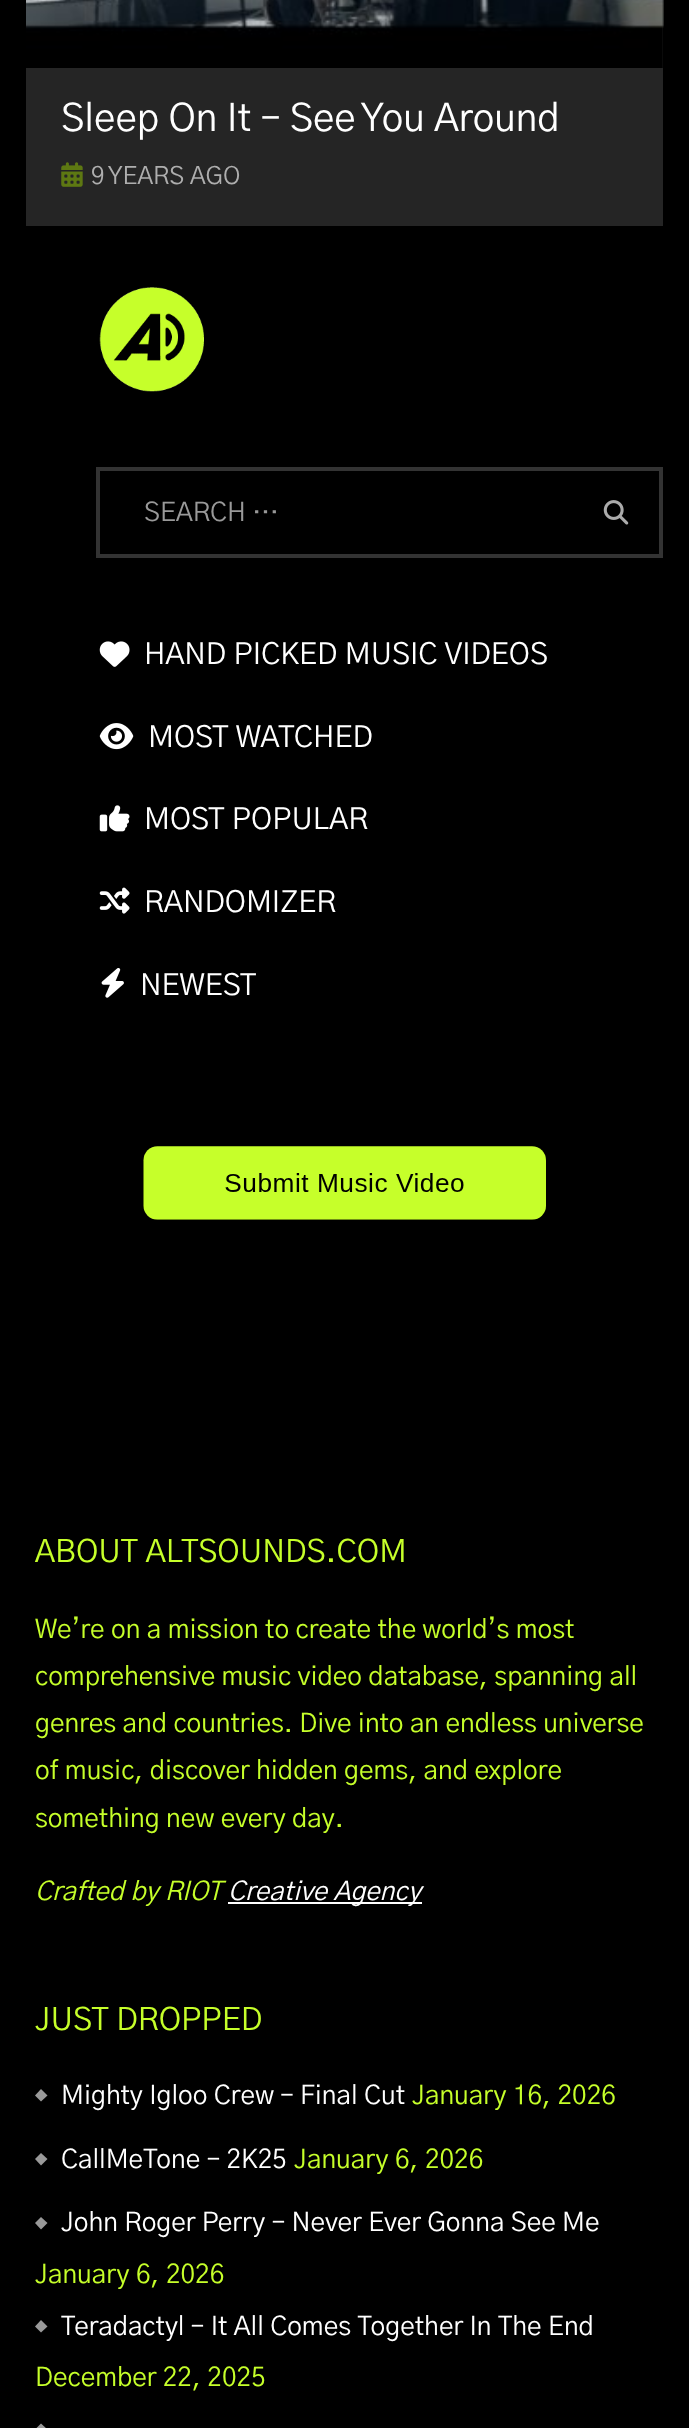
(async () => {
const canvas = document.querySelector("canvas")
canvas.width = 689
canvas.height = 2428
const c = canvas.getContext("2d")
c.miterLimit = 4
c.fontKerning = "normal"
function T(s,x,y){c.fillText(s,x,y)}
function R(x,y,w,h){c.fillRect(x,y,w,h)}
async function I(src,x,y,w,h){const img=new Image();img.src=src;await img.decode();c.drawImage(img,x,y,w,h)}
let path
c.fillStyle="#000"
R(0,0,689,2428)
c.fillStyle="#252525"
R(26,0,637,226)
await I("1.png",26,0,638,68)
c.font="38.5px 'Gothic A1'"
c.fillStyle="#fff"
T("Sleep On It – See You Around",61,131)
await I("2.png",61,162,22,25)
c.font="24.5px 'Gothic A1'"
c.fillStyle="#aeaeae"
T("9 YEARS AGO",91,184)
await I("3.png",99,287,105,105)
c.strokeStyle="#333"
c.lineWidth=4
c.strokeRect(98,469,563,87)
c.font="26.25px 'Gothic A1'"
c.fillStyle="#999"
T("SEARCH …",144,521)
await I("4.png",603,500,26,25)
await I("5.png",99,641,31,26)
c.font="29.75px 'Gothic A1'"
c.fillStyle="#fff"
T("HAND PICKED MUSIC VIDEOS",144,664)
await I("6.png",99,723,35,27)
T("MOST WATCHED",148,747)
await I("7.png",99,805,31,27)
T("MOST POPULAR",144,829)
await I("8.png",99,887,31,27)
T("RANDOMIZER",144,912)
await I("9.png",101,968,23,30)
T("NEWEST",140,995)
await I("10.png",143,1146,403,74)
c.font="31.5px 'Gothic A1'"
c.fillStyle="#c6ff2a"
T("ABOUT ALTSOUNDS.COM",35,1562)
c.font="26.25px 'Gothic A1'"
T("We’re on a mission to create the world’s most",35,1638)
T("comprehensive music video database, spanning all",35,1685)
T("genres and countries. Dive into an endless universe",35,1732)
T("of music, discover hidden gems, and explore",35,1779)
T("something new every day.",35,1827)
c.font="italic 26.25px 'Gothic A1'"
T("Crafted by RIOT",35,1900)
c.fillStyle="#fff"
R(228,1902,194,2)
T("Creative Agency",228,1900)
c.font="31.5px 'Gothic A1'"
c.fillStyle="#c6ff2a"
T("JUST DROPPED",35,2030)
c.fillStyle="#999"
path = new Path2D("M35 2095.5l6-6.5l6.5 6.5l-6.5 6z")
c.fill(path)
c.font="26.25px 'Gothic A1'"
c.fillStyle="#fff"
T("Mighty Igloo Crew – Final Cut",61,2104)
c.fillStyle="#c6ff2a"
T("January 16, 2026",412,2104)
c.fillStyle="#999"
path = new Path2D("M35 2159l6-6l6.5 6l-6.5 6.5z")
c.fill(path)
c.fillStyle="#fff"
T("CallMeTone – 2K25",61,2168)
c.fillStyle="#c6ff2a"
T("January 6, 2026",294,2168)
c.fillStyle="#999"
path = new Path2D("M35 2223l6-6l6.5 6l-6.5 6.5z")
c.fill(path)
c.fillStyle="#fff"
T("John Roger Perry – Never Ever Gonna See Me",61,2231)
c.fillStyle="#c6ff2a"
T("January 6, 2026",35,2283)
c.fillStyle="#999"
path = new Path2D("M35 2326.5l6-6.5l6.5 6.5l-6.5 6z")
c.fill(path)
c.fillStyle="#fff"
T("Teradactyl – It All Comes Together In The End",61,2335)
c.fillStyle="#c6ff2a"
T("December 22, 2025",35,2386)
c.fillStyle="#999"
path = new Path2D("M35 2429.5l6-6l6.5 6l-6.5 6.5z")
c.fill(path)
})()
